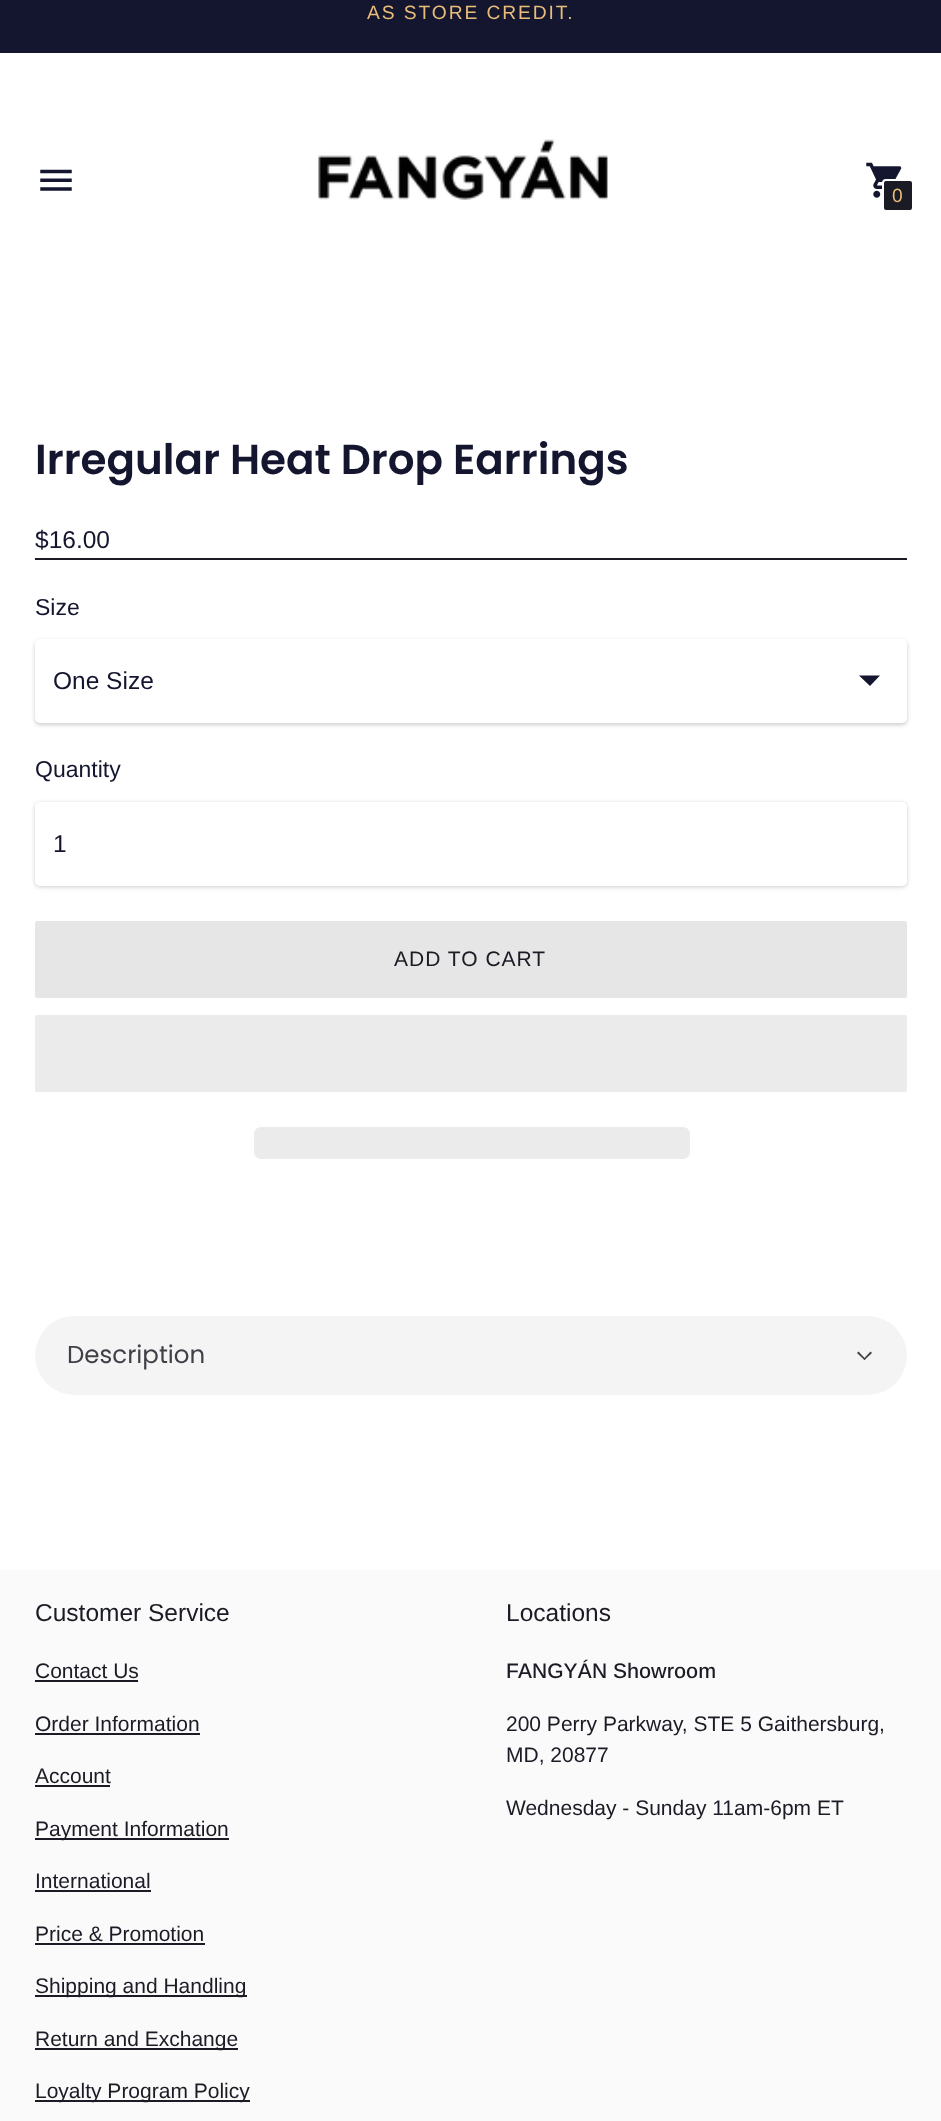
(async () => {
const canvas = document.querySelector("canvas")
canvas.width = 941
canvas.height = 2121
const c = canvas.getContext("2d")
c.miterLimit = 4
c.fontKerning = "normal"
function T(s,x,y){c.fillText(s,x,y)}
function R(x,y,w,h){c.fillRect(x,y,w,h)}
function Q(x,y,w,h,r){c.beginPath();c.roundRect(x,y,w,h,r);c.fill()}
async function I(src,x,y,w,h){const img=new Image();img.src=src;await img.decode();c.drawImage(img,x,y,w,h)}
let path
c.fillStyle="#fff"
R(0,0,941,2121)
c.fillStyle="#14152e"
R(0,0,941,53)
c.letterSpacing="1.9px"
c.font="19.25px Arimo"
c.fillStyle="#e8bd78"
T("AS STORE CREDIT.",367,19)
await I("1.png",40,169,32,22)
await I("2.png",318,139,290,61)
await I("3.png",866,162,36,36)
c.fillStyle="#1a1b24"
c.beginPath()
c.roundRect(883,180,30,31,3)
c.fill()
c.strokeStyle="#fff"
c.lineWidth=2
c.stroke()
c.letterSpacing="0px"
c.fillStyle="#e8bd78"
T("0",892,202)
c.fillStyle="#1a1b24"
R(35,558,872,2)
c.font="600 42px Poppins"
c.fillStyle="#14152e"
T("Irregular Heat Drop Earrings",35,474)
c.font="24.5px Arimo"
T("$16.00",35,548)
c.font="23px Arimo"
T("Size",35,615)
c.fillStyle="#00000033"
c.filter="blur(2px)"
c.beginPath()
c.roundRect(35,641,872,84,5)
c.fill()
c.filter="none"
c.fillStyle="#fff"
Q(35,639,872,84,5)
c.font="24.5px Arimo"
c.fillStyle="#14152e"
T("One Size",53,689)
path = new Path2D("M859 675.5h21l-10 10.5z")
c.fill(path)
c.font="23px Arimo"
T("Quantity",35,777)
c.fillStyle="#00000033"
c.filter="blur(2px)"
c.beginPath()
c.roundRect(35,803,872,84,5)
c.fill()
c.filter="none"
c.fillStyle="#fff"
Q(35,802,872,84,5)
c.font="24.5px Arimo"
c.fillStyle="#14152e"
T("1",53,852)
c.fillStyle="#e6e6e6"
Q(35,921,872,77,2)
c.letterSpacing="1px"
c.font="21px Arimo"
c.fillStyle="#1a1b24"
T("ADD TO CART",394,966)
c.fillStyle="#ebebeb"
Q(35,1015,872,77,2)
Q(254,1127,436,32,7)
c.fillStyle="#f4f4f5"
Q(35,1316,872,79,39.5)
c.letterSpacing="0px"
c.font="24.5px Poppins"
c.fillStyle="#3f3f46"
T("Description",67,1363)
path = new Path2D("M870.5 1351.5l1.5 1.5l-7.5 7l-1-1z")
c.fill(path)
path = new Path2D("M858.5 1351.5l7 7.5l-1 1l-7.5-7z")
c.fill(path)
c.fillStyle="#fafafa"
R(0,1570,941,551)
c.font="24.5px Arimo"
c.fillStyle="#1a1b24"
T("Customer Service",35,1621)
c.font="21px Arimo"
T("Contact Us",35,1678)
R(35,1680,103,2)
T("Order Information",35,1731)
R(35,1733,165,2)
T("Account",35,1783)
R(35,1785,75,2)
R(35,1838,194,2)
T("Payment Information",35,1836)
T("International",35,1888)
R(35,1890,116,2)
T("Price & Promotion",35,1941)
R(35,1943,170,2)
R(35,1995,212,2)
T("Shipping and Handling",35,1993)
R(35,2048,203,2)
T("Return and Exchange",35,2046)
R(35,2100,215,2)
T("Loyalty Program Policy",35,2098)
c.font="24.5px Arimo"
T("Locations",506,1621)
c.font="500 21px Arimo"
T("FANGYÁN Showroom",506,1678)
c.font="21px Arimo"
T("200 Perry Parkway, STE 5 Gaithersburg,",506,1731)
T("MD, 20877",506,1762)
T("Wednesday - Sunday 11am-6pm ET",506,1815)
})()
